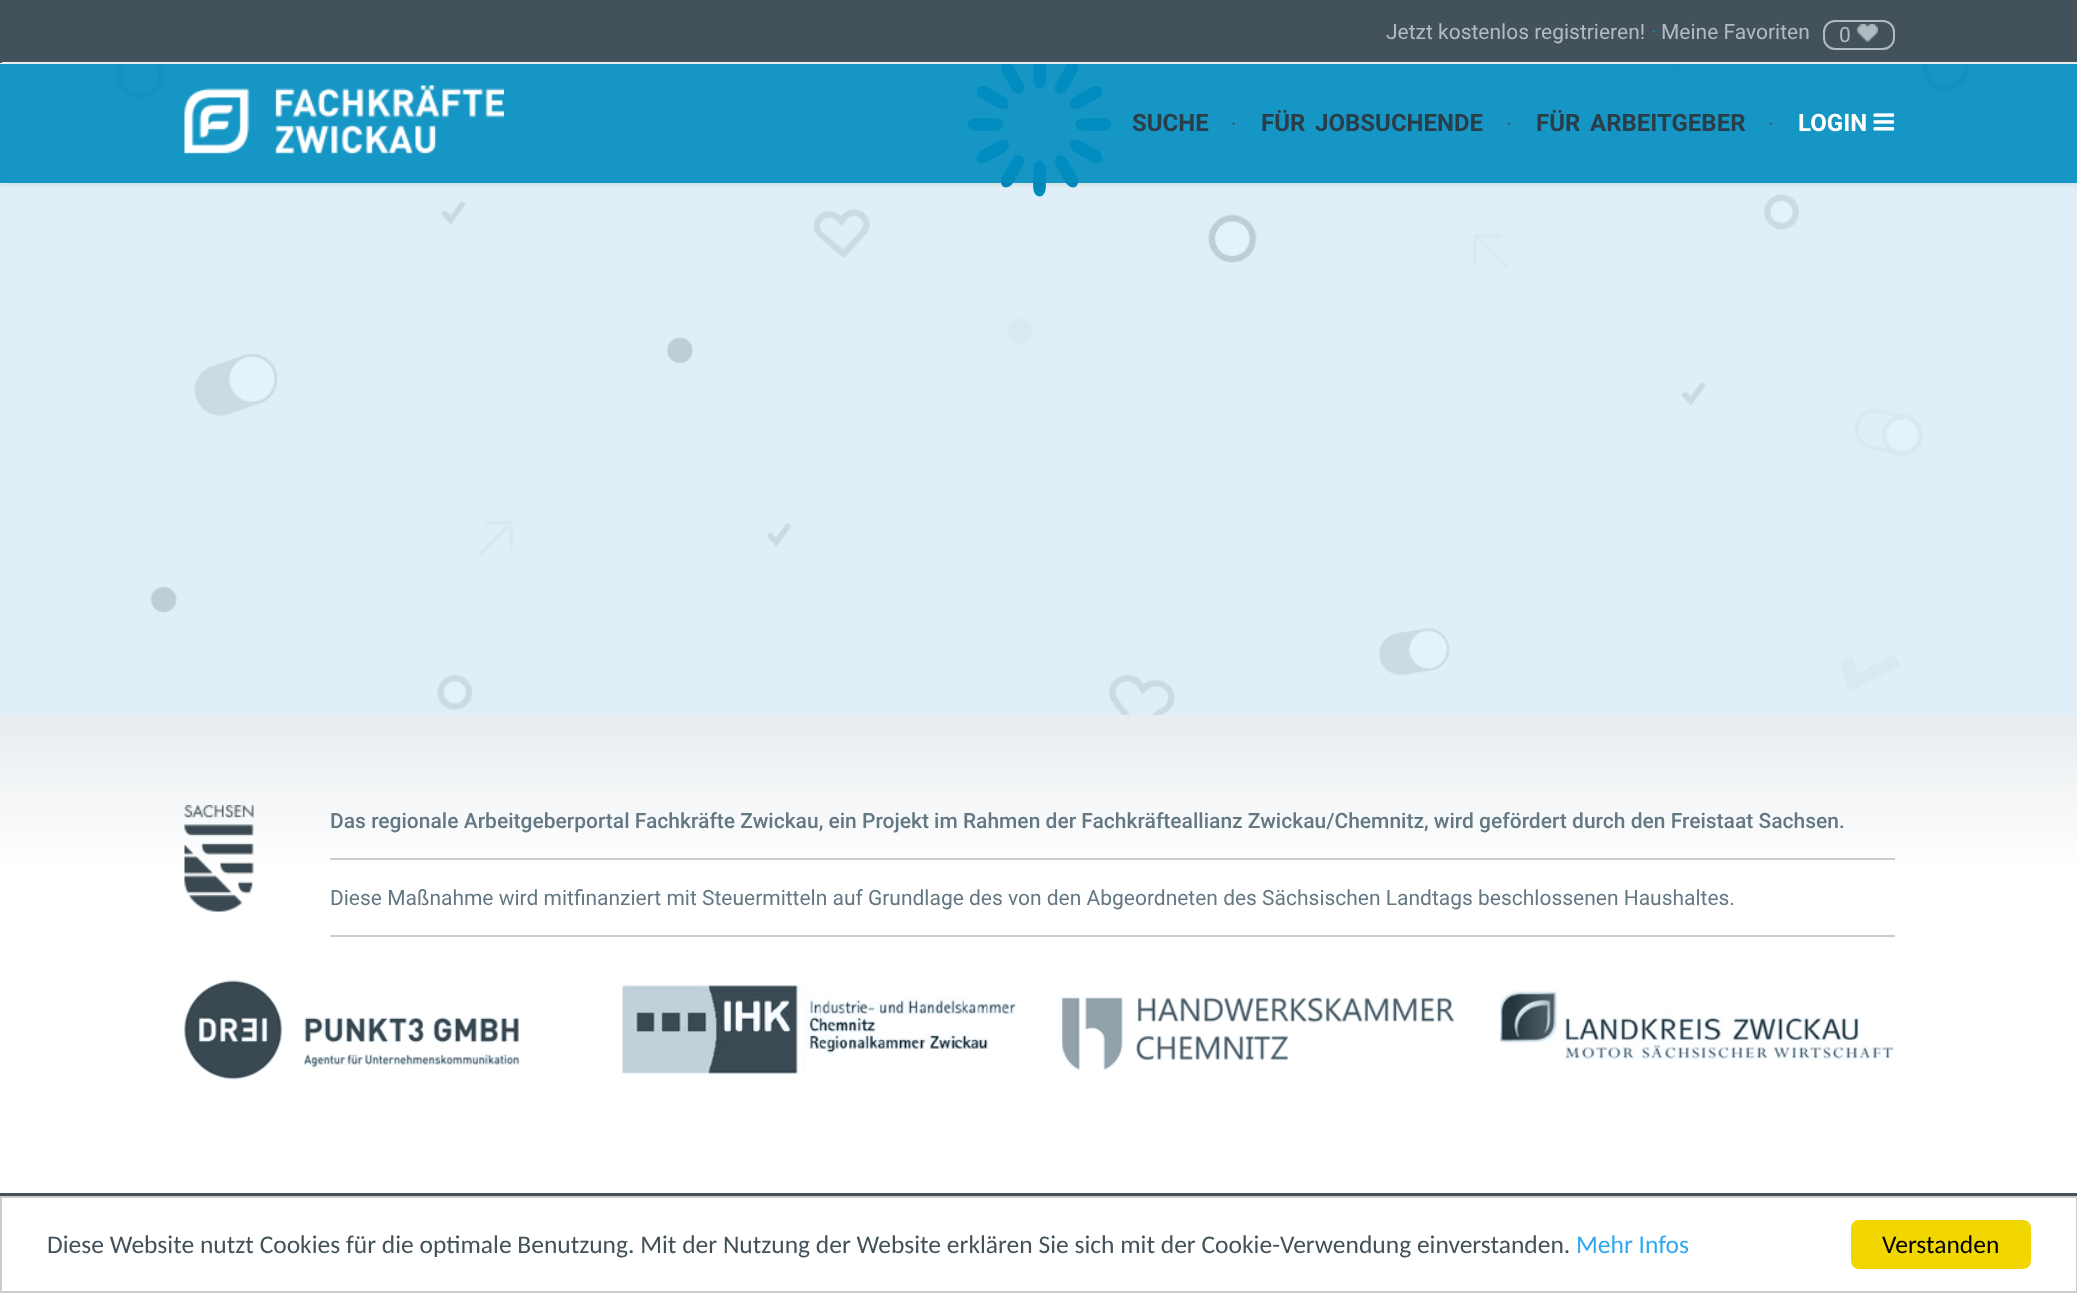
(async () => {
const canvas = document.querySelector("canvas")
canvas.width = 2077
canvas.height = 1293
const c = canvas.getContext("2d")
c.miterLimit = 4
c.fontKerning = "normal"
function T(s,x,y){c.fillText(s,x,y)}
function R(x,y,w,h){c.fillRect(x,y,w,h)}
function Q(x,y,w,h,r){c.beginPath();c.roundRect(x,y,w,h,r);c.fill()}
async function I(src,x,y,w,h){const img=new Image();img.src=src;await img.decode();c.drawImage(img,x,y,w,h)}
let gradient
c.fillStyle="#e9edf0"
R(0,0,2077,1293)
await I("4.png",0,64,2077,651)
await I("5.png",967,64,145,133)
c.save()
c.beginPath()
c.rect(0,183,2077,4)
c.clip()
c.fillStyle="#0000001a"
c.filter="blur(5px)"
c.beginPath()
c.rect(0,0,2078,183)
c.fill()
c.filter="none"
c.restore()
c.fillStyle="#008cbfe6"
R(0,64,2077,119)
c.fillStyle="#43525a"
R(2,0,2075,62)
R(0,0,2,63)
c.font="21px Roboto"
c.fillStyle="#b2bbc1"
T("Jetzt kostenlos registrieren!",1386,39)
c.fillStyle="#008cbf"
T("·",1651,39)
c.fillStyle="#b2bbc1"
T("Meine Favoriten",1661,39)
c.beginPath()
c.roundRect(1824,21,70,28,11)
c.strokeStyle="#b2bbc1"
c.lineWidth=2
c.stroke()
T("0",1839,42)
await I("1.png",1856,24,22,18)
await I("2.png",184,85,320,69)
c.font="bold 24px Roboto"
c.fillStyle="#2a3e4a"
T("SUCHE",1132,131)
c.font="21px Roboto"
c.fillStyle="#43525a"
T("·",1231,131)
c.font="bold 24px Roboto"
c.fillStyle="#2a3e4a"
T("FÜR  JOBSUCHENDE",1261,131)
c.font="21px Roboto"
c.fillStyle="#43525a"
T("·",1506,131)
c.font="bold 24px Roboto"
c.fillStyle="#2a3e4a"
T("FÜR  ARBEITGEBER",1536,131)
c.font="21px Roboto"
c.fillStyle="#43525a"
T("·",1768,131)
c.font="bold 24px Roboto"
c.fillStyle="#fff"
T("LOGIN",1798,131)
await I("3.png",1873,113,22,18)
gradient = c.createLinearGradient(1039,715,1039,1193)
gradient.addColorStop(.01,"#e9edf0")
gradient.addColorStop(.33,"#fff")
c.fillStyle = gradient
R(0,737,2077,456)
await I("6.png",184,805,70,107)
c.fillStyle="#ccc"
R(330,858,1565,2)
c.font="500 21px Roboto"
c.fillStyle="#647883"
T("Das regionale Arbeitgeberportal Fachkräfte Zwickau, ein Projekt im Rahmen der Fachkräfteallianz Zwickau/Chemnitz, wird gefördert durch den Freistaat Sachsen.",330,828)
c.fillStyle="#ccc"
R(330,935,1565,2)
c.font="21px Roboto"
c.fillStyle="#647883"
T("Diese Maßnahme wird mitfinanziert mit Steuermitteln auf Grundlage des von den Abgeordneten des Sächsischen Landtags beschlossenen Haushaltes.",330,905)
await I("7.png",184,980,336,100)
await I("8.png",622,985,395,89)
await I("9.png",1062,997,392,73)
await I("10.png",1500,991,394,69)
c.fillStyle="#43525a"
R(0,1193,2077,3)
c.fillStyle="#fff"
c.beginPath()
c.rect(1,1197,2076,95)
c.fill()
c.strokeStyle="#ccc"
c.stroke()
c.font="25.5px Carlito"
c.fillStyle="#43525a"
T("Diese Website nutzt Cookies für die optimale Benutzung. Mit der Nutzung der Website erklären Sie sich mit der Cookie-Verwendung einverstanden.",47,1253)
c.fillStyle="#31a8f0"
T("Mehr Infos",1576,1253)
c.fillStyle="#f1d600"
Q(1851,1220,180,49,8)
c.fillStyle="#000"
T("Verstanden",1882,1253)
})()
